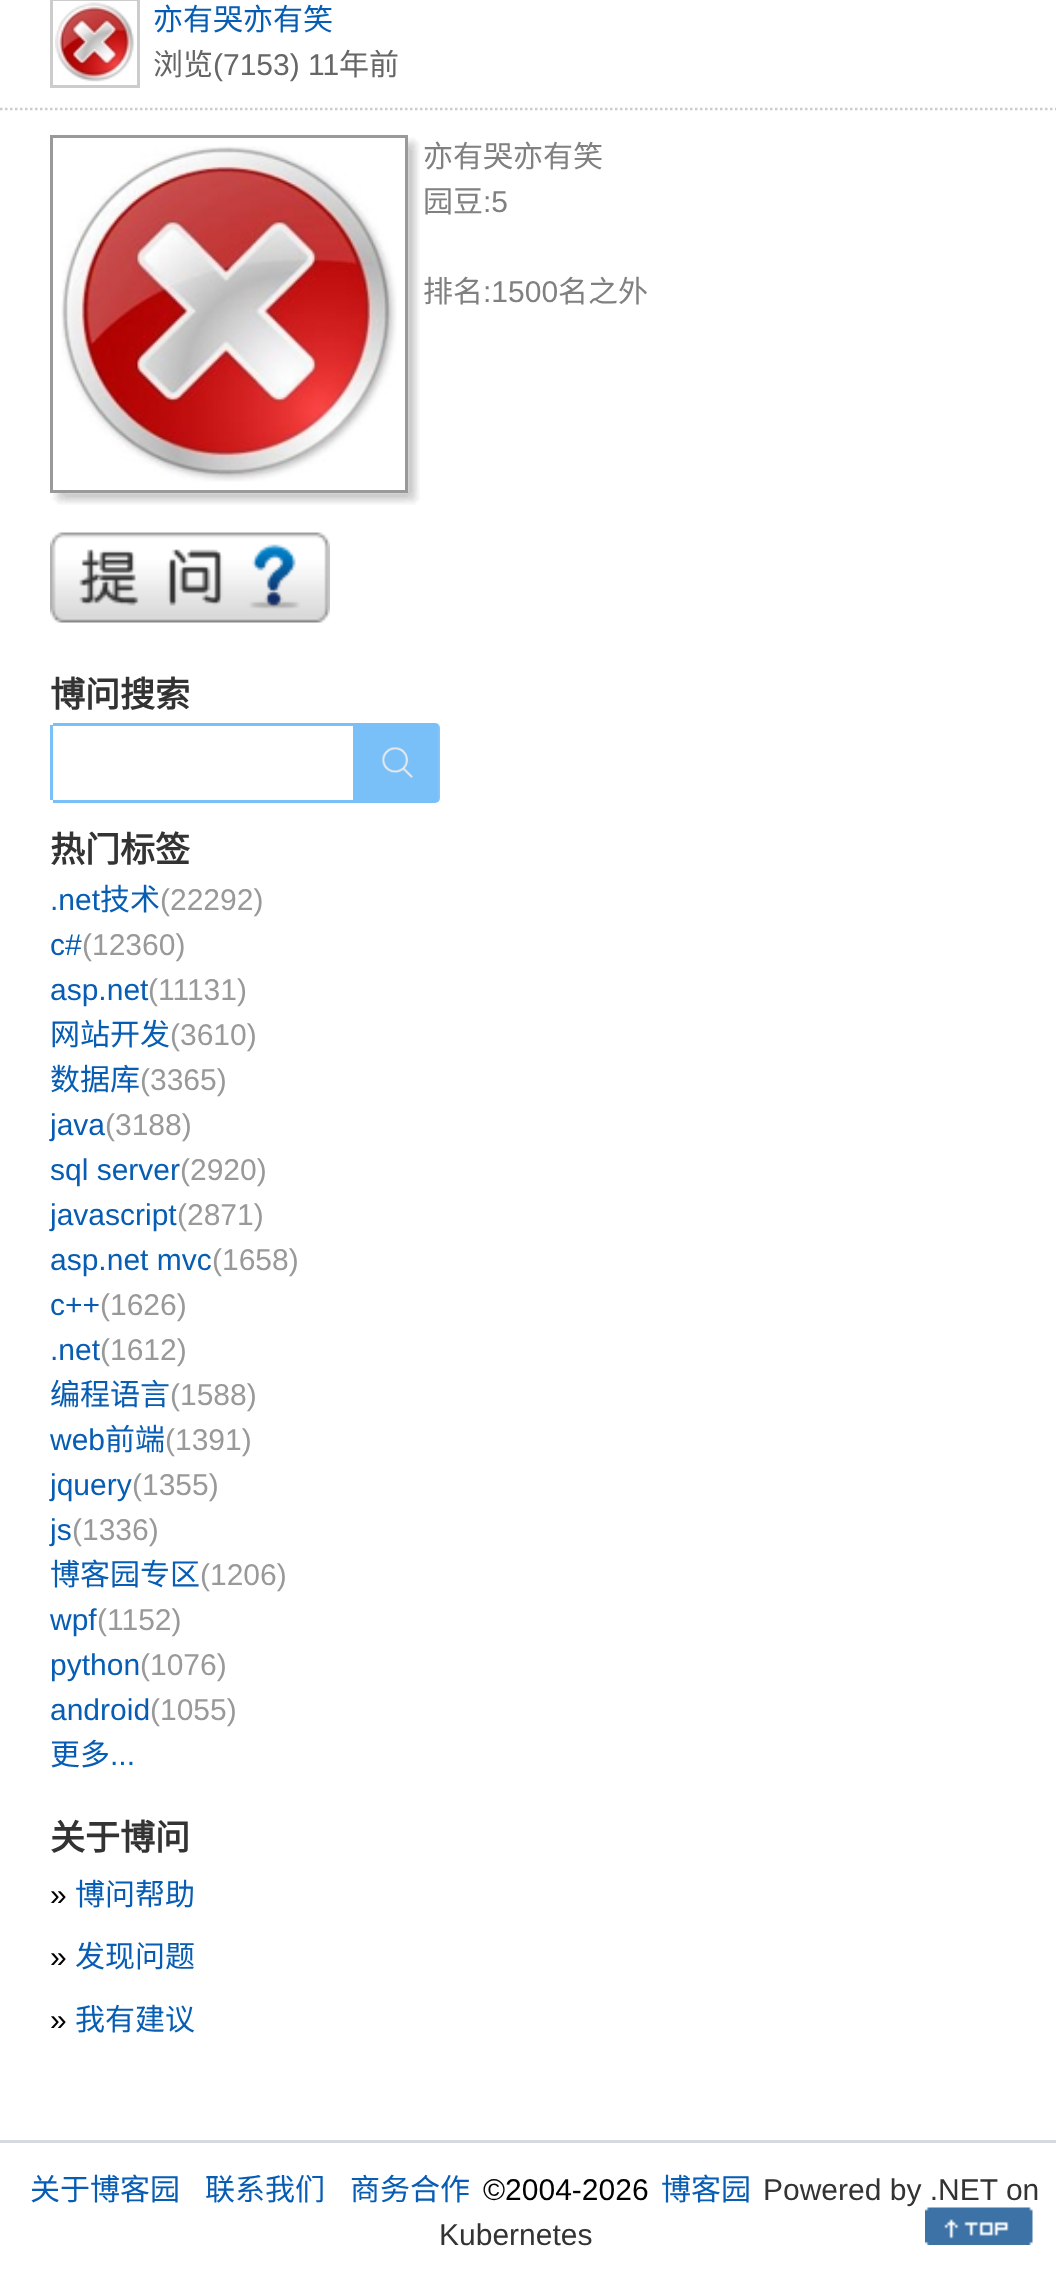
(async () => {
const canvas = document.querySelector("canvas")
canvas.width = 1056
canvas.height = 2281
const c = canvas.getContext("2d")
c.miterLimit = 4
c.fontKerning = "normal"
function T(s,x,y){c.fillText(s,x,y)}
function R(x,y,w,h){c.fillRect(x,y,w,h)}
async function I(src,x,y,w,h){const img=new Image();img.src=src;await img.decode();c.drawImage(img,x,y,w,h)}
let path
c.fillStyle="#fff"
R(0,0,1056,2281)
path = new Path2D("M0 109h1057.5")
c.strokeStyle="#ccc"
c.lineWidth=2.5
c.setLineDash([2.5,2.5])
c.stroke(path)
c.lineWidth=3
c.setLineDash([])
c.strokeRect(51.5,-.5,87,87)
await I("1.png",55,2,80,80)
c.font="30px Noto Sans CJK SC"
c.fillStyle="#075db3"
T("亦有哭亦有笑",153,30)
c.fillStyle="#666"
T("浏览",153,75)
c.font="30px Liberation Sans"
T("(7153) 11",213,75)
c.font="30px Noto Sans CJK SC"
T("年前",339,75)
await I("2.png",65,150,355,355)
await I("3.png",408,135,12,15)
await I("4.png",50,493,15,12)
c.strokeStyle="#999"
c.strokeRect(51.5,136.5,355,355)
await I("5.png",61,146,336,336)
c.fillStyle="#808080"
T("亦有哭亦有笑",423,167)
T("园豆",423,212)
c.font="30px Liberation Sans"
T(":5",483,212)
c.font="30px Noto Sans CJK SC"
T("排名",423,302)
c.font="30px Liberation Sans"
T(":1500",483,302)
c.font="30px Noto Sans CJK SC"
T("名之外",558,302)
await I("6.png",50,532,280,91)
c.font="bold 35px Noto Sans CJK SC"
c.fillStyle="#333"
T("博问搜索",50,707)
c.fillStyle="#7ac0f8"
R(53,723,300,3)
R(53,800,300,3)
R(50,725,3,75)
c.beginPath()
c.roundRect(353,723,87,80,[0,5,5,0])
c.fill()
await I("7.png",382,747,31,31)
c.fillStyle="#ecf6ff1a"
R(438,725,2,75)
c.fillStyle="#333"
T("热门标签",50,862)
c.font="30px Liberation Sans"
c.fillStyle="#075db3"
T(".net",50,910)
c.font="30px Noto Sans CJK SC"
T("技术",100,910)
c.font="30px Liberation Sans"
c.fillStyle="#999"
T("(22292)",160,910)
c.fillStyle="#075db3"
T("c#",50,955)
c.fillStyle="#999"
T("(12360)",82,955)
c.fillStyle="#075db3"
T("asp.net",50,1000)
c.fillStyle="#999"
T("(11131)",148,1000)
c.font="30px Noto Sans CJK SC"
c.fillStyle="#075db3"
T("网站开发",50,1045)
c.font="30px Liberation Sans"
c.fillStyle="#999"
T("(3610)",170,1045)
c.font="30px Noto Sans CJK SC"
c.fillStyle="#075db3"
T("数据库",50,1090)
c.font="30px Liberation Sans"
c.fillStyle="#999"
T("(3365)",140,1090)
c.fillStyle="#075db3"
T("java",50,1135)
c.fillStyle="#999"
T("(3188)",105,1135)
c.fillStyle="#075db3"
T("sql server",50,1180)
c.fillStyle="#999"
T("(2920)",180,1180)
c.fillStyle="#075db3"
T("javascript",50,1225)
c.fillStyle="#999"
T("(2871)",177,1225)
c.fillStyle="#075db3"
T("asp.net mvc",50,1270)
c.fillStyle="#999"
T("(1658)",212,1270)
c.fillStyle="#075db3"
T("c++",50,1315)
c.fillStyle="#999"
T("(1626)",100,1315)
c.fillStyle="#075db3"
T(".net",50,1360)
c.fillStyle="#999"
T("(1612)",100,1360)
c.font="30px Noto Sans CJK SC"
c.fillStyle="#075db3"
T("编程语言",50,1405)
c.font="30px Liberation Sans"
c.fillStyle="#999"
T("(1588)",170,1405)
c.fillStyle="#075db3"
T("web",50,1450)
c.font="30px Noto Sans CJK SC"
T("前端",105,1450)
c.font="30px Liberation Sans"
c.fillStyle="#999"
T("(1391)",165,1450)
c.fillStyle="#075db3"
T("jquery",50,1495)
c.fillStyle="#999"
T("(1355)",132,1495)
c.fillStyle="#075db3"
T("js",50,1540)
c.fillStyle="#999"
T("(1336)",72,1540)
c.font="30px Noto Sans CJK SC"
c.fillStyle="#075db3"
T("博客园专区",50,1585)
c.font="30px Liberation Sans"
c.fillStyle="#999"
T("(1206)",200,1585)
c.fillStyle="#075db3"
T("wpf",50,1630)
c.fillStyle="#999"
T("(1152)",97,1630)
c.fillStyle="#075db3"
T("python",50,1675)
c.fillStyle="#999"
T("(1076)",140,1675)
c.fillStyle="#075db3"
T("android",50,1720)
c.fillStyle="#999"
T("(1055)",150,1720)
c.font="30px Noto Sans CJK SC"
c.fillStyle="#075db3"
T("更多",50,1765)
c.font="30px Liberation Sans"
T("...",110,1765)
c.font="bold 35px Noto Sans CJK SC"
c.fillStyle="#333"
T("关于博问",50,1850)
c.font="30px Liberation Sans"
c.fillStyle="#000"
T("»",50,1905)
c.font="30px Noto Sans CJK SC"
c.fillStyle="#075db3"
T("博问帮助",75,1905)
c.font="30px Liberation Sans"
c.fillStyle="#000"
T("»",50,1967)
c.font="30px Noto Sans CJK SC"
c.fillStyle="#075db3"
T("发现问题",75,1967)
c.font="30px Liberation Sans"
c.fillStyle="#000"
T("»",50,2030)
c.font="30px Noto Sans CJK SC"
c.fillStyle="#075db3"
T("我有建议",75,2030)
c.fillStyle="#d6d9de"
R(0,2140,1056,3)
c.fillStyle="#075db3"
T("关于博客园",30,2200)
T("联系我们",205,2200)
T("商务合作",350,2200)
c.font="30px Liberation Sans"
c.fillStyle="#000"
T("©2004-2026",483,2200)
c.font="30px Noto Sans CJK SC"
c.fillStyle="#075db3"
T("博客园",661,2200)
c.font="30px Liberation Sans"
c.fillStyle="#333"
T("Powered by .NET on",763,2200)
T("Kubernetes",439,2245)
await I("8.png",925,2207,108,38)
})()
